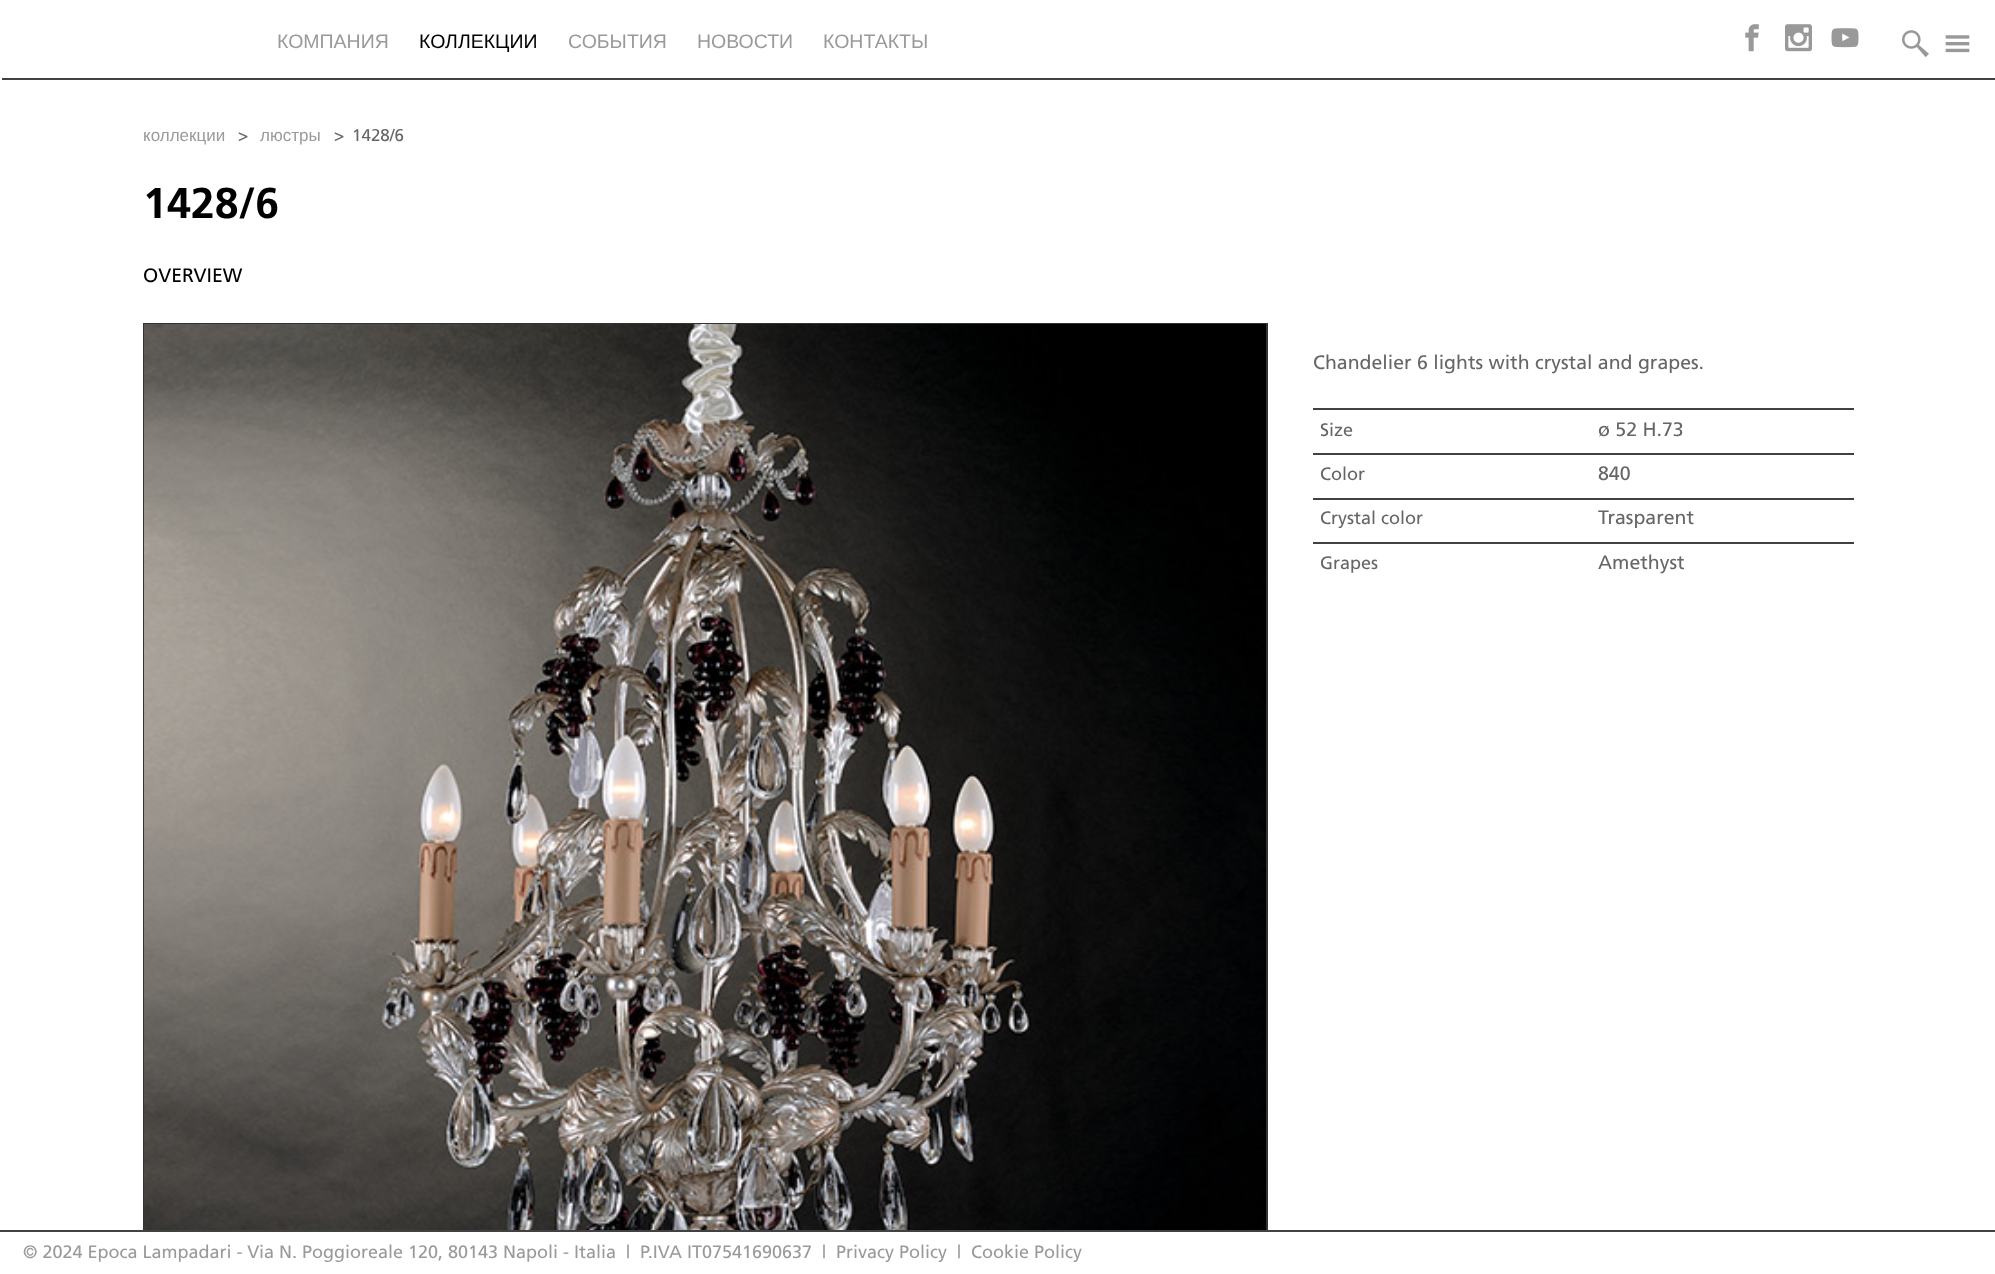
(async () => {
const canvas = document.querySelector("canvas")
canvas.width = 1995
canvas.height = 1274
const c = canvas.getContext("2d")
c.miterLimit = 4
c.fontKerning = "normal"
function T(s,x,y){c.fillText(s,x,y)}
function R(x,y,w,h){c.fillRect(x,y,w,h)}
async function I(src,x,y,w,h){const img=new Image();img.src=src;await img.decode();c.drawImage(img,x,y,w,h)}
c.fillStyle="#fff"
R(0,0,1995,1274)
c.fillStyle="#414141"
R(0,78,1995,2)
c.fillStyle="#fff"
R(0,78,2,2)
c.font="19.5px Liberation Sans"
c.fillStyle="#9a9a9a"
T("КОМПАНИЯ",277,48)
c.fillStyle="#000"
T("КОЛЛЕКЦИИ",419,48)
c.fillStyle="#9a9a9a"
T("СОБЫТИЯ",568,48)
T("НОВОСТИ",697,48)
T("КОНТАКТЫ",823,48)
await I("1.png",1745,24,14,28)
await I("2.png",1785,24,27,28)
await I("3.png",1831,28,28,20)
await I("4.png",1902,30,27,27)
await I("5.png",1945,35,25,18)
c.font="17px Liberation Sans"
T("коллекции",143,141)
c.font="17px Frutiger"
c.fillStyle="#666"
T(">",238,141)
c.font="17px Liberation Sans"
c.fillStyle="#9a9a9a"
T("люстры",260,141)
c.font="17px Frutiger"
c.fillStyle="#666"
T(">",334,141)
T("1428/6",352,141)
c.font="bold 43px Frutiger"
c.fillStyle="#000"
T("1428/6",143,218)
c.font="19.5px Frutiger"
T("OVERVIEW",143,282)
c.strokeStyle="#333"
c.lineWidth=2
c.strokeRect(144,324,1123,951)
await I("6.png",144,324,1122,906)
c.fillStyle="#666"
T("Chandelier 6 lights with crystal and grapes.",1313,369)
c.font="18px Frutiger"
T("Size",1320,436)
c.fillStyle="#414141"
R(1313,408,541,2)
c.font="19.5px Frutiger"
c.fillStyle="#666"
T("ø 52 H.73",1598,436)
c.font="18px Frutiger"
T("Color",1320,480)
c.fillStyle="#414141"
R(1313,453,541,2)
c.font="19.5px Frutiger"
c.fillStyle="#666"
T("840",1598,480)
c.font="18px Frutiger"
T("Crystal color",1320,524)
c.fillStyle="#414141"
R(1313,498,541,2)
c.font="19.5px Frutiger"
c.fillStyle="#666"
T("Trasparent",1598,524)
c.font="18px Frutiger"
T("Grapes",1320,569)
c.fillStyle="#414141"
R(1313,542,541,2)
c.font="19.5px Frutiger"
c.fillStyle="#666"
T("Amethyst",1598,569)
c.fillStyle="#fff"
R(143,1232,1125,42)
c.fillStyle="#414141"
R(0,1230,1995,2)
c.font="18px Frutiger"
c.fillStyle="#9a9a9a"
T("© 2024 Epoca Lampadari - Via N. Poggioreale 120, 80143 Napoli - Italia  |  P.IVA IT07541690637  |",23,1258)
T("Privacy Policy",836,1258)
T("|",957,1258)
T("Cookie Policy",971,1258)
})()
